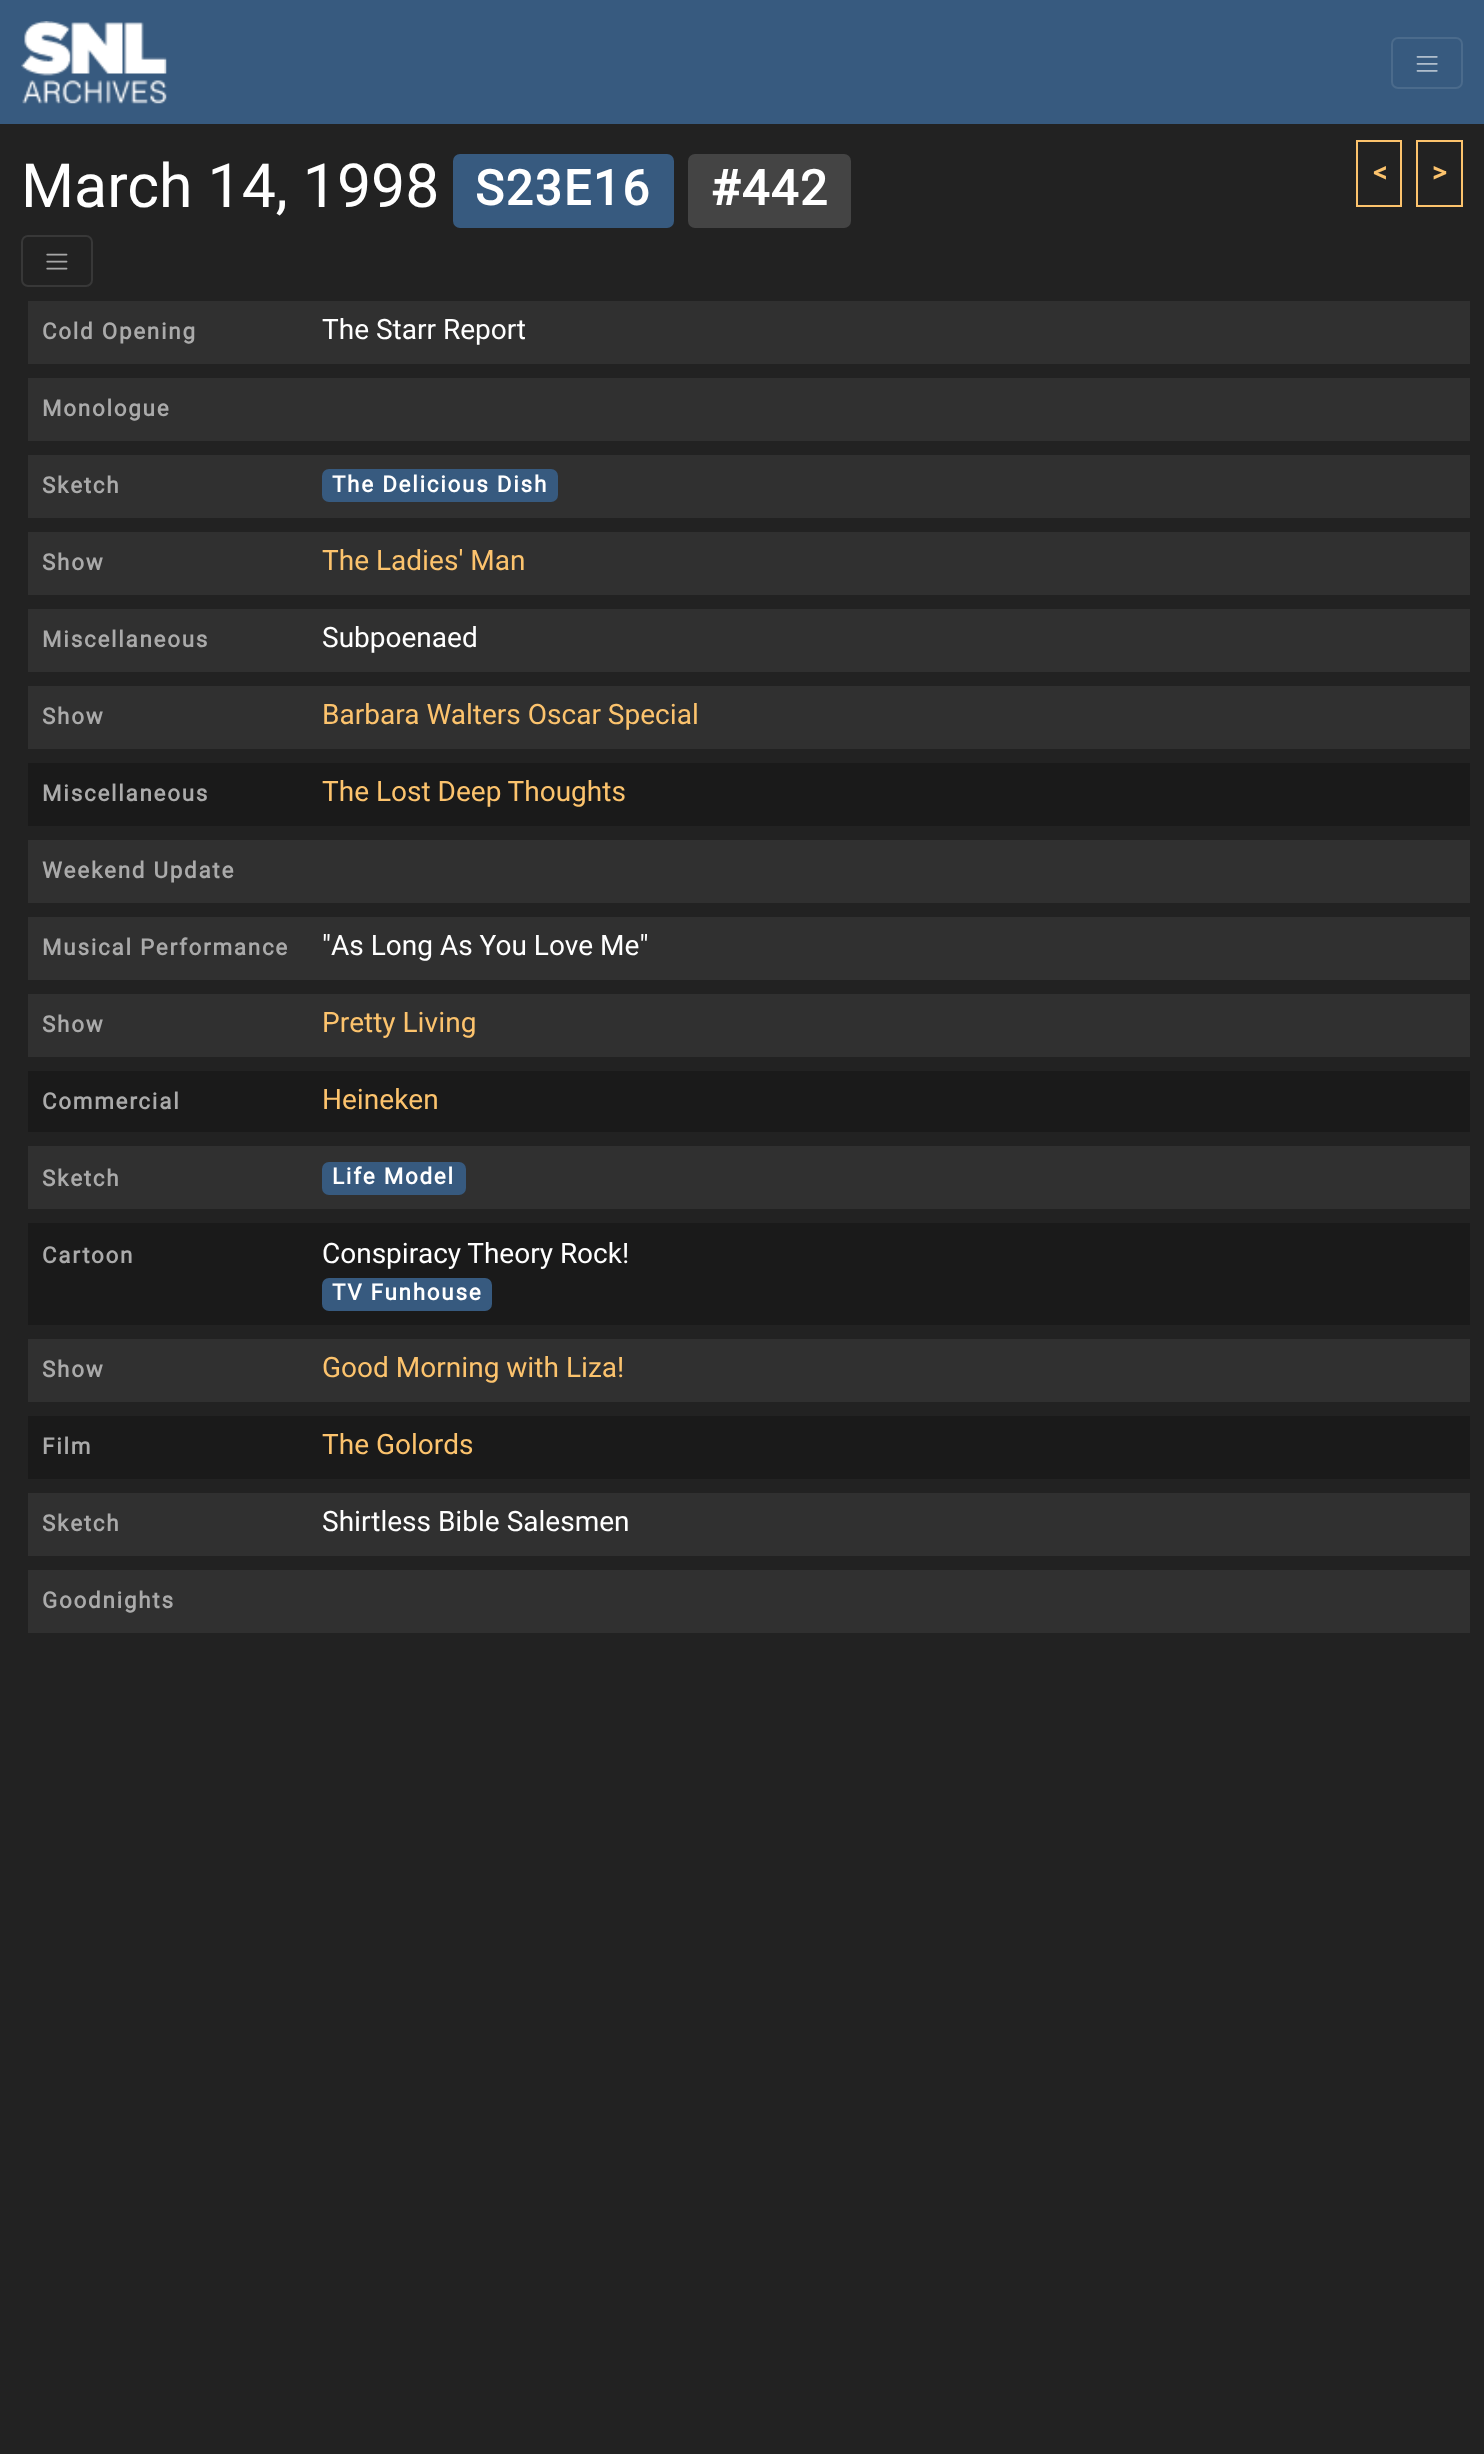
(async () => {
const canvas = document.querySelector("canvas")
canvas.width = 1484
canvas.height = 2454
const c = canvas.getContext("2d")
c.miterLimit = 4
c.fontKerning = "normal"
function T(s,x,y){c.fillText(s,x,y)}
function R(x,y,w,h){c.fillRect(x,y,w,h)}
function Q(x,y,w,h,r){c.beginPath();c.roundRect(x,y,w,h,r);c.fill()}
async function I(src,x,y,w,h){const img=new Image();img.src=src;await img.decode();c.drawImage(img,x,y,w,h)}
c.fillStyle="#222"
R(0,0,1484,2454)
c.fillStyle="#375a7f"
R(0,0,1484,124)
await I("1.png",21,21,146,83)
c.beginPath()
c.roundRect(1392,38,70,50,6)
c.strokeStyle="#4b6b8c"
c.lineWidth=2
c.stroke()
await I("2.png",1416,56,22,16)
c.font="60.75px Heebo"
c.fillStyle="#fff"
T("March 14, 1998",21,207)
c.fillStyle="#375a7f"
Q(453,154,221,74,7)
c.letterSpacing="1.75px"
c.font="bold 48.5px Heebo"
c.fillStyle="#fff"
T("S23E16",475,205)
c.fillStyle="#444"
Q(688,154,163,74,7)
c.fillStyle="#fff"
T("#442",710,205)
c.strokeStyle="#fcc36d"
c.strokeRect(1357,141,44,65)
c.letterSpacing="0px"
c.font="bold 28px Heebo"
c.fillStyle="#fcc36d"
T("<",1372,182)
c.strokeRect(1417,141,45,65)
T(">",1432,182)
c.beginPath()
c.roundRect(22,236,70,50,6)
c.strokeStyle="#383838"
c.stroke()
await I("3.png",46,253,22,17)
c.fillStyle="#303030"
R(28,301,1442,63)
c.letterSpacing="1.75px"
c.font="bold 22.4px Heebo"
c.fillStyle="#aaa"
T("Cold Opening",42,339)
c.letterSpacing="0px"
c.font="28px Heebo"
c.fillStyle="#fff"
T("The Starr Report",322,339)
c.fillStyle="#303030"
R(28,378,1442,63)
c.letterSpacing="1.75px"
c.font="bold 22.4px Heebo"
c.fillStyle="#aaa"
T("Monologue",42,416)
c.fillStyle="#303030"
R(28,455,1442,63)
c.fillStyle="#aaa"
T("Sketch",42,493)
c.fillStyle="#375a7f"
Q(322,469,236,33,7)
c.fillStyle="#fff"
T("The Delicious Dish",332,492)
c.fillStyle="#303030"
R(28,532,1442,63)
c.fillStyle="#aaa"
T("Show",42,570)
c.letterSpacing="0px"
c.font="28px Heebo"
c.fillStyle="#fcc36d"
T("The Ladies' Man",322,570)
c.fillStyle="#303030"
R(28,609,1442,63)
c.letterSpacing="1.75px"
c.font="bold 22.4px Heebo"
c.fillStyle="#aaa"
T("Miscellaneous",42,647)
c.letterSpacing="0px"
c.font="28px Heebo"
c.fillStyle="#fff"
T("Subpoenaed",322,647)
c.fillStyle="#303030"
R(28,686,1442,63)
c.letterSpacing="1.75px"
c.font="bold 22.4px Heebo"
c.fillStyle="#aaa"
T("Show",42,724)
c.letterSpacing="0px"
c.font="28px Heebo"
c.fillStyle="#fcc36d"
T("Barbara Walters Oscar Special",322,724)
c.fillStyle="#1a1a1a"
R(28,763,1442,63)
c.letterSpacing="1.75px"
c.font="bold 22.4px Heebo"
c.fillStyle="#aaa"
T("Miscellaneous",42,801)
c.letterSpacing="0px"
c.font="28px Heebo"
c.fillStyle="#fcc36d"
T("The Lost Deep Thoughts",322,801)
c.fillStyle="#303030"
R(28,840,1442,63)
c.letterSpacing="1.75px"
c.font="bold 22.4px Heebo"
c.fillStyle="#aaa"
T("Weekend Update",42,878)
c.fillStyle="#303030"
R(28,917,1442,63)
c.fillStyle="#aaa"
T("Musical Performance",42,955)
c.letterSpacing="0px"
c.font="28px Heebo"
c.fillStyle="#fff"
T("\"As Long As You Love Me\"",322,955)
c.fillStyle="#303030"
R(28,994,1442,63)
c.letterSpacing="1.75px"
c.font="bold 22.4px Heebo"
c.fillStyle="#aaa"
T("Show",42,1032)
c.letterSpacing="0px"
c.font="28px Heebo"
c.fillStyle="#fcc36d"
T("Pretty Living",322,1032)
c.fillStyle="#1a1a1a"
R(28,1071,1442,61)
c.letterSpacing="1.75px"
c.font="bold 22.4px Heebo"
c.fillStyle="#aaa"
T("Commercial",42,1109)
c.letterSpacing="0px"
c.font="28px Heebo"
c.fillStyle="#fcc36d"
T("Heineken",322,1109)
c.fillStyle="#303030"
R(28,1146,1442,63)
c.letterSpacing="1.75px"
c.font="bold 22.4px Heebo"
c.fillStyle="#aaa"
T("Sketch",42,1186)
c.fillStyle="#375a7f"
Q(322,1162,144,33,7)
c.fillStyle="#fff"
T("Life Model",332,1184)
c.fillStyle="#1a1a1a"
R(28,1223,1442,102)
c.fillStyle="#aaa"
T("Cartoon",42,1263)
c.letterSpacing="0px"
c.font="28px Heebo"
c.fillStyle="#fff"
T("Conspiracy Theory Rock!",322,1263)
c.fillStyle="#375a7f"
Q(322,1278,170,33,7)
c.letterSpacing="1.75px"
c.font="bold 22.4px Heebo"
c.fillStyle="#fff"
T("TV Funhouse",332,1300)
c.fillStyle="#303030"
R(28,1339,1442,63)
c.fillStyle="#aaa"
T("Show",42,1377)
c.letterSpacing="0px"
c.font="28px Heebo"
c.fillStyle="#fcc36d"
T("Good Morning with Liza!",322,1377)
c.fillStyle="#1a1a1a"
R(28,1416,1442,63)
c.letterSpacing="1.75px"
c.font="bold 22.4px Heebo"
c.fillStyle="#aaa"
T("Film",42,1454)
c.letterSpacing="0px"
c.font="28px Heebo"
c.fillStyle="#fcc36d"
T("The Golords",322,1454)
c.fillStyle="#303030"
R(28,1493,1442,63)
c.letterSpacing="1.75px"
c.font="bold 22.4px Heebo"
c.fillStyle="#aaa"
T("Sketch",42,1531)
c.letterSpacing="0px"
c.font="28px Heebo"
c.fillStyle="#fff"
T("Shirtless Bible Salesmen",322,1531)
c.fillStyle="#303030"
R(28,1570,1442,63)
c.letterSpacing="1.75px"
c.font="bold 22.4px Heebo"
c.fillStyle="#aaa"
T("Goodnights",42,1608)
})()
